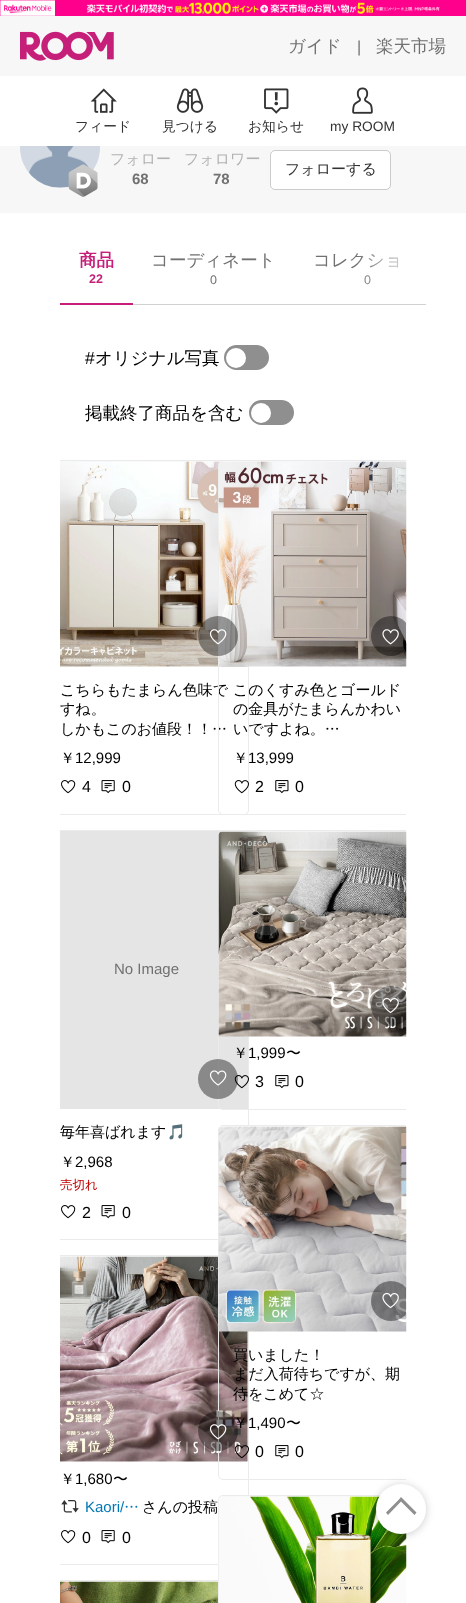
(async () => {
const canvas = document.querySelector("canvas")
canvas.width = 466
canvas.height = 1603
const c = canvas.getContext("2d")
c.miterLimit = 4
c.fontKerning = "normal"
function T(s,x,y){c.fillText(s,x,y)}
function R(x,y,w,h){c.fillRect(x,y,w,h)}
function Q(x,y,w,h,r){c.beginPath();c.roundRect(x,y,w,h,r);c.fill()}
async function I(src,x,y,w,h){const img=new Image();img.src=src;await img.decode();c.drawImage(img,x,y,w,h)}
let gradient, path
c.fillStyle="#fff"
R(0,0,466,1603)
await I("1.png",0,0,466,16)
c.fillStyle="#f7f7f7"
R(0,16,466,60)
await I("2.png",20,31,94,30)
c.font="500 17.5px WenQuanYi Zen Hei"
c.fillStyle="#717171"
T("ガイド",288,52)
c.font="16px Liberation Sans"
T("|",357,52)
c.font="500 17.5px WenQuanYi Zen Hei"
T("楽天市場",376,52)
await I("3.png",90,88,27,25)
c.font="500 13.75px WenQuanYi Zen Hei"
c.fillStyle="#333"
T("フィード",75,131)
await I("4.png",176,88,28,25)
T("見つける",162,131)
await I("5.png",264,88,25,26)
T("お知らせ",248,131)
await I("6.png",352,87,21,27)
c.font="13.75px Liberation Sans"
T("my ROOM",330,131)
c.fillStyle="#f7f7f7"
R(0,146,466,67)
await I("7.png",20,146,80,42)
await I("8.png",68,164,30,33)
c.font="500 15px WenQuanYi Zen Hei"
c.fillStyle="#b2b2b2"
T("フォロー",110,164)
c.font="bold 15px Liberation Sans"
c.fillStyle="#717171"
T("68",132,184)
c.font="500 15px WenQuanYi Zen Hei"
c.fillStyle="#b2b2b2"
T("フォロワー",184,164)
c.font="bold 15px Liberation Sans"
c.fillStyle="#717171"
T("78",213,184)
c.fillStyle="#fff"
Q(270,150,121,40,5)
c.beginPath()
c.roundRect(270.5,150.5,120,39,4.5)
c.strokeStyle="#00000033"
c.stroke()
c.font="500 15px WenQuanYi Zen Hei"
c.fillStyle="#333"
T("フォローする",285,174)
c.fillStyle="#c61e79"
R(60,303,73,2)
c.font="bold 17.5px WenQuanYi Zen Hei"
T("商品",79,266)
c.font="bold 12.5px Liberation Sans"
T("22",89,283)
c.fillStyle="#d1d1d1"
R(133,304,293,1)
c.font="500 17.5px WenQuanYi Zen Hei"
c.fillStyle="#717171"
T("コーディネート",151,266)
c.font="12.5px Liberation Sans"
T("0",210,284)
c.font="500 17.5px WenQuanYi Zen Hei"
T("コレクショ",313,266)
c.font="12.5px Liberation Sans"
T("0",364,284)
gradient = c.createLinearGradient(426,254,356,254)
gradient.addColorStop(0,"#fff")
gradient.addColorStop(1,"#ffffff00")
c.fillStyle = gradient
R(358,254,41,30)
c.font="17.5px Liberation Sans"
c.fillStyle="#000"
T("#",85,364)
c.font="500 17.5px WenQuanYi Zen Hei"
T("オリジナル写真",95,364)
c.fillStyle="#8f8f8f"
c.beginPath()
c.roundRect(225.5,346.5,42,22,11)
c.fill()
c.strokeStyle="#8f8f8f"
c.lineWidth=3
c.stroke()
c.fillStyle="#fff"
c.beginPath()
c.arc(236,358,10,0,7)
c.fill()
c.fillStyle="#000"
T("掲載終了商品を含む",85,419)
c.fillStyle="#8f8f8f"
c.beginPath()
c.roundRect(250.5,401.5,42,22,11)
c.fill()
c.stroke()
c.fillStyle="#fff"
c.beginPath()
c.arc(261,413,10,0,7)
c.fill()
c.save()
c.beginPath()
c.rect(60,460,346,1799)
c.clip()
c.beginPath()
c.roundRect(44.5,460.5,204,354,4.5)
c.strokeStyle="#ebebeb"
c.lineWidth=1
c.stroke()
c.restore()
c.fillStyle="#f7f7f7"
R(60,461,163,1)
await I("9.png",60,461,188,206)
c.font="500 15px WenQuanYi Zen Hei"
c.fillStyle="#000"
T("こちらもたまらん色味で",60,695)
T("しかもこのお値段！！…",60,734)
c.save()
c.beginPath()
c.rect(60,460,346,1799)
c.clip()
c.beginPath()
c.roundRect(218.5,460.5,204,354,4.5)
c.strokeStyle="#ebebeb"
c.lineWidth=1
c.stroke()
c.restore()
c.fillStyle="#f7f7f7"
c.beginPath()
c.roundRect(219,461,187,205,[4,0,0,0])
c.fill()
await I("18.png",218,461,189,206)
c.fillStyle="#00000066"
c.beginPath()
c.arc(218,636,20,0,7)
c.fill()
await I("10.png",209,629,18,16)
c.fillStyle="#000"
T("すね。",60,714)
T("￥",60,763)
c.font="15px Liberation Sans"
T("12,999",75,763)
await I("11.png",61,780,15,14)
c.font="16px Liberation Sans"
T("4",82,792)
await I("12.png",101,780,14,14)
T("0",122,792)
c.save()
c.beginPath()
c.rect(60,460,346,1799)
c.clip()
c.beginPath()
c.roundRect(44.5,830.5,204,409,4.5)
c.strokeStyle="#ebebeb"
c.lineWidth=1
c.stroke()
c.restore()
c.fillStyle="#0000001a"
R(60,831,188,278)
c.font="15px Liberation Sans"
c.fillStyle="#717171"
T("No Image",114,974)
c.save()
c.beginPath()
c.rect(60,460,346,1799)
c.clip()
c.beginPath()
c.roundRect(218.5,830.5,204,279,4.5)
c.strokeStyle="#ebebeb"
c.lineWidth=1
c.stroke()
c.restore()
await I("24.png",234,1075,15,14)
c.fillStyle="#00000066"
c.beginPath()
c.arc(218,1079,20,0,7)
c.fill()
await I("13.png",209,1070,18,16)
c.font="500 15px WenQuanYi Zen Hei"
c.fillStyle="#000"
T("毎年喜ばれます",60,1137)
c.save()
c.beginPath()
c.rect(60,1124,173,20)
c.clip()
c.font="15px Noto Color Emoji"
T("🎵",167,1137)
c.restore()
T("￥",60,1167)
c.font="15px Liberation Sans"
T("2,968",75,1167)
c.font="500 12.5px WenQuanYi Zen Hei"
c.fillStyle="#bf0000"
T("売切れ",60,1189)
await I("11.png",61,1205,15,14)
c.font="16px Liberation Sans"
c.fillStyle="#000"
T("2",82,1218)
await I("12.png",101,1205,14,14)
T("0",122,1218)
c.save()
c.beginPath()
c.rect(60,460,346,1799)
c.clip()
c.beginPath()
c.roundRect(44.5,1255.5,204,309,4.5)
c.strokeStyle="#ebebeb"
c.lineWidth=1
c.stroke()
c.restore()
c.fillStyle="#f7f7f7"
R(60,1256,188,205)
await I("14.png",60,1256,188,206)
c.save()
c.beginPath()
c.rect(60,460,346,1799)
c.clip()
c.beginPath()
c.roundRect(218.5,1125.5,204,354,4.5)
c.strokeStyle="#ebebeb"
c.lineWidth=1
c.stroke()
c.restore()
c.font="500 15px WenQuanYi Zen Hei"
c.fillStyle="#000"
T("￥",233,1428)
await I("27.png",234,1445,15,14)
c.fillStyle="#00000066"
c.beginPath()
c.arc(218,1431,20,0,7)
c.fill()
await I("15.png",209,1424,18,16)
c.fillStyle="#000"
T("￥",60,1484)
c.font="15px Liberation Sans"
T("1,680",75,1484)
c.font="500 15px WenQuanYi Zen Hei"
T("〜",113,1484)
await I("16.png",61,1500,18,13)
c.font="15px Liberation Sans"
c.fillStyle="#0078b5"
T("Kaori/",85,1512)
c.font="500 15px WenQuanYi Zen Hei"
T("…",124,1512)
c.fillStyle="#000"
T("さんの投稿",142,1512)
await I("11.png",61,1530,15,14)
c.font="16px Liberation Sans"
T("0",82,1543)
await I("12.png",101,1530,14,14)
T("0",122,1543)
c.save()
c.beginPath()
c.rect(60,460,346,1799)
c.clip()
c.beginPath()
c.roundRect(44.5,1580.5,204,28,4.5)
c.strokeStyle="#ebebeb"
c.lineWidth=1
c.stroke()
c.restore()
c.fillStyle="#f7f7f7"
R(60,1581,158,1)
await I("17.png",60,1581,158,22)
c.save()
c.beginPath()
c.rect(60,460,346,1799)
c.clip()
c.fillStyle="#00000066"
c.beginPath()
c.arc(391,636,20,0,7)
c.fill()
c.restore()
await I("19.png",382,629,17,16)
c.font="500 15px WenQuanYi Zen Hei"
c.fillStyle="#000"
T("このくすみ色とゴールド",233,695)
T("の金具がたまらんかわい",233,714)
T("いですよね。…",233,734)
T("￥",233,763)
c.font="15px Liberation Sans"
T("13,999",248,763)
await I("20.png",234,780,15,14)
c.font="16px Liberation Sans"
T("2",255,792)
await I("21.png",275,780,14,14)
T("0",295,792)
c.fillStyle="#f7f7f7"
c.beginPath()
c.roundRect(219,831,187,205,[4,0,0,0])
c.fill()
await I("22.png",218,831,189,206)
c.save()
c.beginPath()
c.rect(60,460,346,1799)
c.clip()
c.fillStyle="#00000066"
c.beginPath()
c.arc(391,1006,20,0,7)
c.fill()
c.restore()
await I("23.png",382,997,17,17)
c.font="500 15px WenQuanYi Zen Hei"
c.fillStyle="#000"
T("￥",233,1058)
c.font="15px Liberation Sans"
T("1,999",248,1058)
c.font="500 15px WenQuanYi Zen Hei"
T("〜",286,1058)
c.font="16px Liberation Sans"
T("3",255,1087)
await I("21.png",275,1075,14,14)
T("0",295,1087)
c.fillStyle="#f7f7f7"
c.beginPath()
c.roundRect(219,1126,187,205,[4,0,0,0])
c.fill()
await I("25.png",218,1126,189,206)
c.save()
c.beginPath()
c.rect(60,460,346,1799)
c.clip()
c.fillStyle="#00000066"
c.beginPath()
c.arc(391,1301,20,0,7)
c.fill()
c.restore()
await I("26.png",382,1292,17,17)
c.font="500 15px WenQuanYi Zen Hei"
c.fillStyle="#000"
T("買いました！",233,1360)
T("まだ入荷待ちですが、期",233,1379)
T("待をこめて☆",233,1399)
c.font="15px Liberation Sans"
T("1,490",248,1428)
c.font="500 15px WenQuanYi Zen Hei"
T("〜",286,1428)
c.font="16px Liberation Sans"
T("0",255,1457)
await I("21.png",275,1445,14,14)
T("0",295,1457)
c.save()
c.beginPath()
c.rect(60,460,346,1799)
c.clip()
c.beginPath()
c.roundRect(218.5,1495.5,204,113,4.5)
c.strokeStyle="#ebebeb"
c.lineWidth=1
c.stroke()
c.restore()
c.fillStyle="#f7f7f7"
path = new Path2D("M223 1496h183v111h-187v-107c0-2 2-4 4-4z")
c.fill(path)
await I("28.png",218,1496,189,107)
c.fillStyle="#00000033"
c.filter="blur(4px)"
c.beginPath()
c.roundRect(376,1485,50,50,25)
c.fill()
c.filter="none"
c.fillStyle="#fff"
c.beginPath()
c.arc(401,1509,25,0,7)
c.fill()
c.fillStyle="#8f8f8f"
path = new Path2D("M399 1499.5l-13 13l2 2.5l13-13.5l13.5 13.5l2-2.5l-15.5-15.5z")
c.fill(path)
})()
